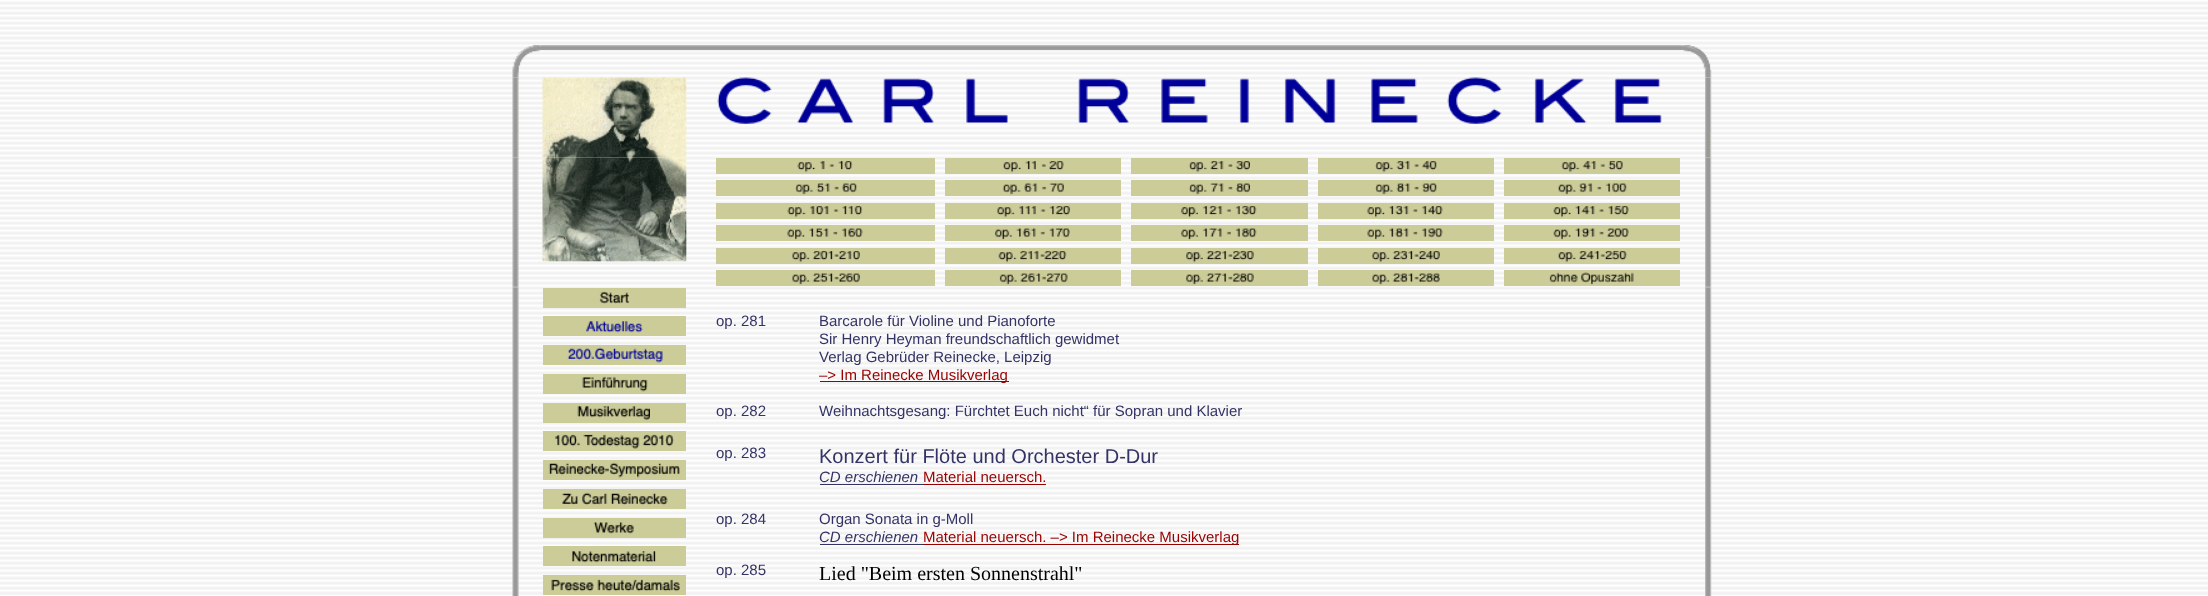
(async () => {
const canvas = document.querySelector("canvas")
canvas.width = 2208
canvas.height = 596
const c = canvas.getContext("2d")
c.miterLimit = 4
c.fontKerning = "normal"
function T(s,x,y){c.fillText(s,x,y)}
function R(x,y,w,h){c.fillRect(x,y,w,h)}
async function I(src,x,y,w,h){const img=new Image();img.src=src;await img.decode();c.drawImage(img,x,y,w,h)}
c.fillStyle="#fff"
R(0,0,2208,596)
await I("1.png",0,0,2208,596)
await I("2.png",512,45,1200,33)
await I("3.png",512,77,175,53)
await I("4.png",717,77,945,47)
await I("5.png",1705,77,7,53)
await I("6.png",512,130,1200,28)
await I("7.png",512,157,175,130)
c.fillStyle="#cc9"
R(716,158,219,16)
await I("8.png",797,161,56,12)
R(945,158,176,16)
await I("9.png",1003,161,61,12)
R(1131,158,177,16)
await I("10.png",1188,161,62,12)
R(1318,158,176,16)
await I("11.png",1375,161,62,12)
R(1504,158,176,16)
await I("12.png",1561,161,62,12)
R(716,180,219,16)
await I("13.png",795,183,62,12)
R(945,180,176,16)
await I("14.png",1002,183,62,12)
R(1131,180,177,16)
await I("15.png",1188,183,62,12)
R(1318,180,176,16)
await I("16.png",1375,183,62,12)
R(1504,180,176,16)
await I("17.png",1558,183,69,12)
R(716,203,219,16)
await I("18.png",787,206,76,12)
R(945,203,176,16)
await I("19.png",997,206,73,12)
R(1131,203,177,16)
await I("20.png",1181,206,76,12)
R(1318,203,176,16)
await I("21.png",1367,206,76,12)
R(1504,203,176,16)
await I("22.png",1553,206,76,12)
R(716,225,219,16)
await I("23.png",787,228,76,12)
R(945,225,176,16)
await I("24.png",995,228,75,12)
R(1131,225,177,16)
await I("25.png",1181,228,76,12)
R(1318,225,176,16)
await I("26.png",1367,228,76,12)
R(1504,225,176,16)
await I("27.png",1553,228,76,12)
R(716,248,219,16)
await I("28.png",792,251,68,12)
R(945,248,176,16)
await I("29.png",998,251,69,12)
R(1131,248,177,16)
await I("30.png",1186,251,68,12)
R(1318,248,176,16)
await I("31.png",1372,251,68,12)
R(1504,248,176,16)
await I("32.png",1558,251,69,12)
R(716,270,219,16)
await I("33.png",792,273,68,12)
R(945,270,176,16)
await I("34.png",999,273,69,12)
R(1131,270,177,16)
await I("35.png",1186,273,68,12)
R(1318,270,176,16)
await I("36.png",1372,273,68,12)
R(1504,270,176,16)
await I("37.png",1549,272,85,13)
await I("38.png",1705,157,7,130)
await I("39.png",512,286,1200,2)
await I("40.png",512,287,7,309)
R(543,288,143,20)
await I("41.png",599,291,30,13)
R(543,316,143,20)
await I("42.png",586,321,57,12)
R(543,345,143,20)
await I("43.png",567,347,96,16)
R(543,374,143,20)
await I("44.png",582,376,66,16)
R(543,403,143,20)
await I("45.png",577,406,73,14)
R(543,431,143,20)
await I("46.png",555,434,119,15)
R(543,460,143,20)
await I("47.png",548,462,132,16)
R(543,489,143,20)
await I("48.png",562,492,106,13)
R(543,518,143,20)
await I("49.png",593,522,41,12)
R(543,546,143,20)
await I("50.png",572,551,84,12)
R(543,575,143,20)
await I("51.png",551,579,129,13)
await I("52.png",1705,287,7,309)
c.font="15px Liberation Sans"
c.fillStyle="#336"
T("op. 281",716,326)
T("Barcarole für Violine und Pianoforte",819,326)
T("Sir Henry Heyman freundschaftlich gewidmet",819,344)
T("Verlag Gebrüder Reinecke, Leipzig",819,362)
c.fillStyle="#900"
R(820,381,189,1)
T("–> Im Reinecke Musikverlag",819,380)
c.fillStyle="#336"
T("op. 282",716,416)
T("Weihnachtsgesang: Fürchtet Euch nicht“ für Sopran und Klavier",819,416)
T("op. 283",716,458)
c.font="20px Liberation Sans"
T("Konzert für Flöte und Orchester D-Dur",819,463)
c.font="italic 15px Liberation Sans"
T("CD erschienen",819,482)
R(820,484,103,1)
c.font="15px Liberation Sans"
c.fillStyle="#900"
T("Material neuersch.",923,482)
R(923,484,123,1)
c.fillStyle="#336"
T("op. 284",716,524)
T("Organ Sonata in g-Moll",819,524)
c.font="italic 15px Liberation Sans"
T("CD erschienen",819,542)
R(820,544,103,1)
c.fillStyle="#900"
R(923,544,316,1)
c.font="15px Liberation Sans"
T("Material neuersch. –> Im Reinecke Musikverlag",923,542)
c.fillStyle="#336"
T("op. 285",716,575)
c.font="20px Liberation Serif"
c.fillStyle="#000"
T("Lied \"Beim ersten Sonnenstrahl\"",819,580)
})()
